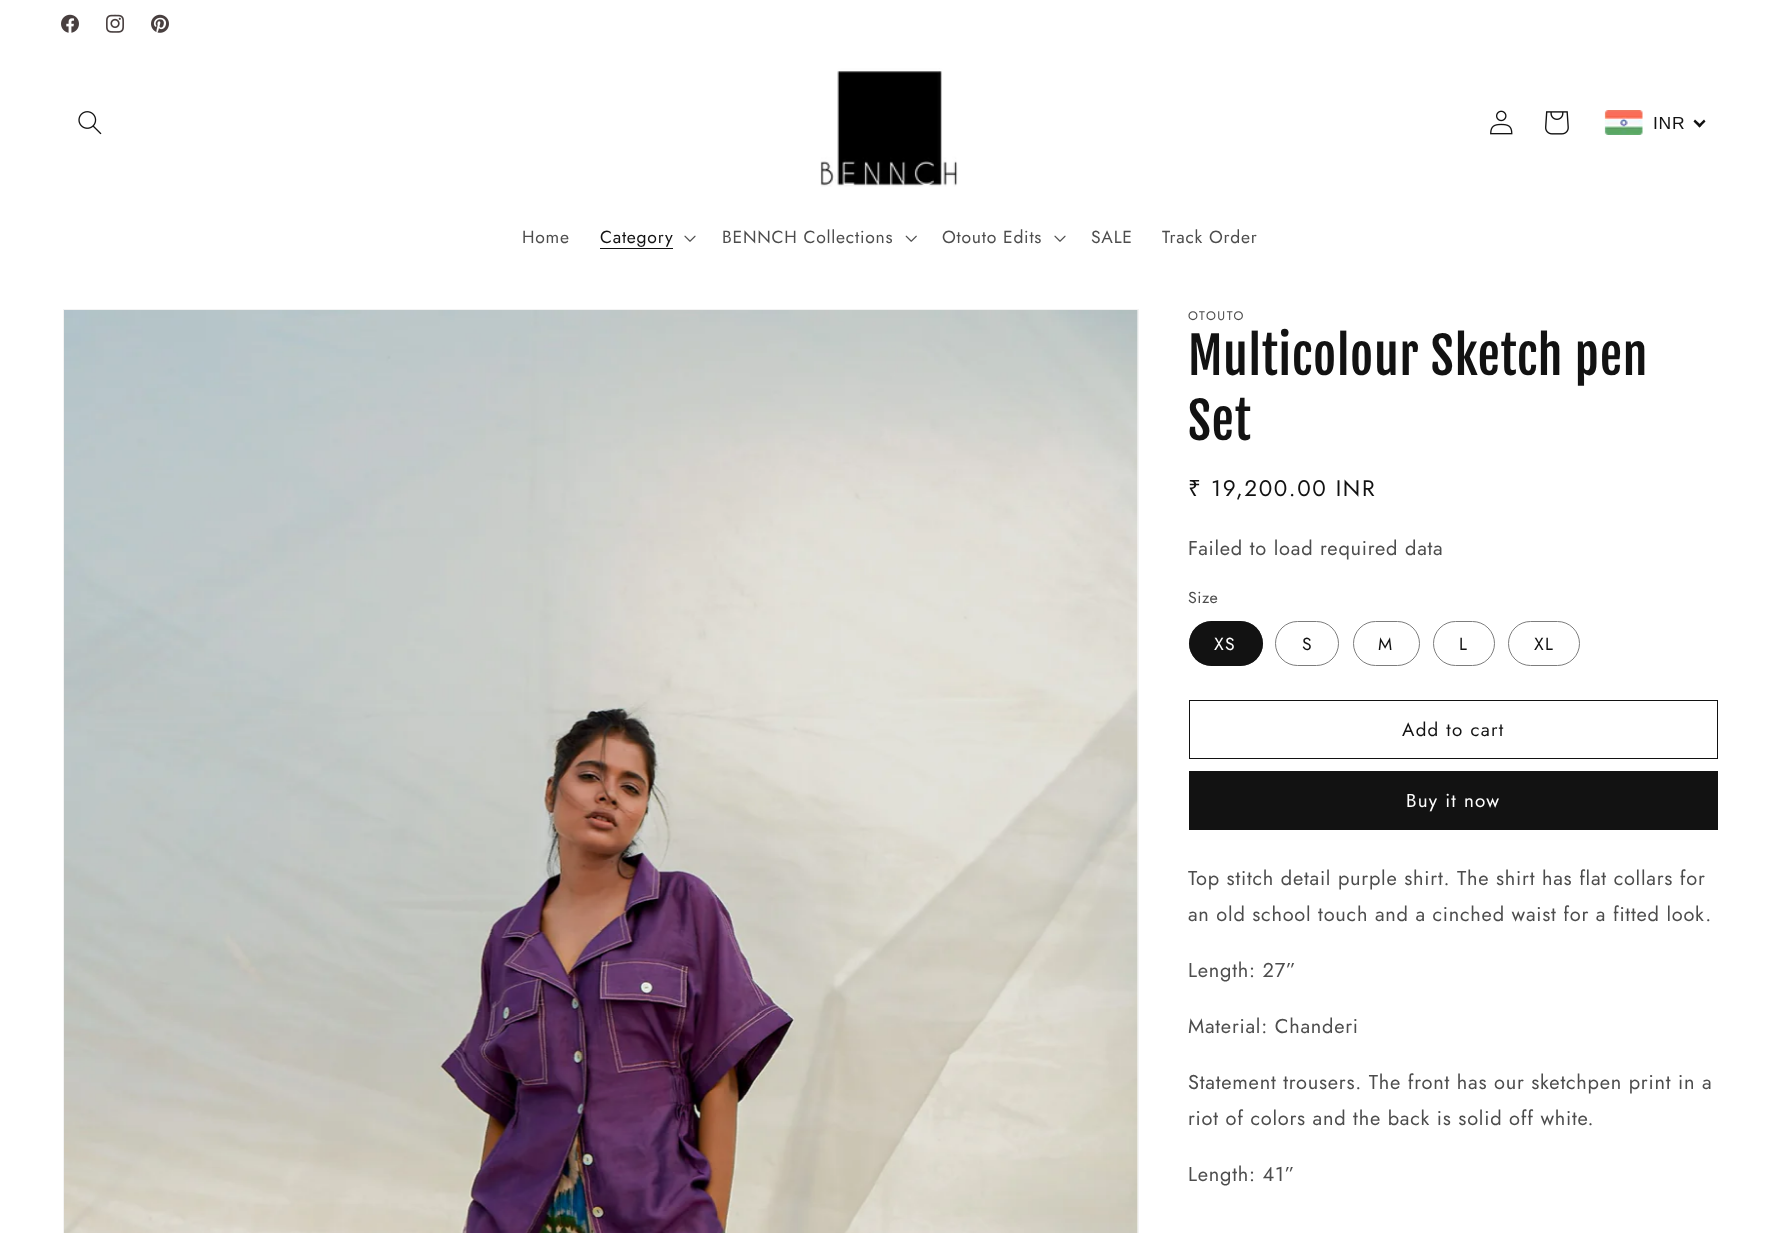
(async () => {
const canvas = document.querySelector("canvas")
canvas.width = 1780
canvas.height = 1233
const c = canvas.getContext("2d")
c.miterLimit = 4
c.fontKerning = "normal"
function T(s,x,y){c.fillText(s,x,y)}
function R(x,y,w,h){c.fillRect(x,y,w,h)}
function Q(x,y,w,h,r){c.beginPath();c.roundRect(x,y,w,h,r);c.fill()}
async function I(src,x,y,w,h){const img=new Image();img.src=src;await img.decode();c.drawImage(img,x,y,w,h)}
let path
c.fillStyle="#fff"
R(0,0,1780,1233)
await I("1.png",61,14,18,19)
await I("2.png",106,14,18,19)
await I("3.png",151,14,18,19)
await I("4.png",78,111,24,24)
await I("5.png",820,68,138,119)
await I("6.png",1490,110,23,25)
await I("7.png",1545,111,24,24)
await I("8.png",1604,110,39,25)
c.letterSpacing="0.75px"
c.font="17.5px Liberation Sans"
c.fillStyle="#121212"
T("INR",1653,129)
path = new Path2D("M1704 119.5l1.5 2l-6 6l-1.5-2z")
c.fill(path)
path = new Path2D("M1695 119.5l6.5 6l-2 2l-6-6z")
c.fill(path)
c.font="17.5px Jost"
c.fillStyle="#4d4d4d"
T("Home",522,243)
c.fillStyle="#121212"
T("Category",600,243)
R(600,248,73,1)
await I("9.png",684,235,12,7)
c.fillStyle="#4d4d4d"
T("BENNCH Collections",722,243)
await I("10.png",905,235,12,7)
T("Otouto Edits",942,243)
await I("9.png",1054,235,12,7)
T("SALE",1091,243)
T("Track Order",1162,243)
c.strokeStyle="#f3f3f3"
c.strokeRect(63.5,309.5,1075,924)
await I("11.png",64,310,1074,923)
c.letterSpacing="1.6px"
c.font="12.5px Jost"
T("OTOUTO",1188,320)
c.letterSpacing="0.75px"
c.font="50px Fjalla One"
c.fillStyle="#121212"
T("Multicolour Sketch pen",1188,375)
T("Set",1188,440)
c.letterSpacing="1.6px"
c.font="22.5px Noto Sans"
T("₹",1188,496)
c.font="22.5px Jost"
T("19,200.00 INR",1211,496)
c.letterSpacing="0.75px"
c.font="20px Jost"
c.fillStyle="#4d4d4d"
T("Failed to load required data",1188,555)
c.letterSpacing="0.5px"
c.font="16px Jost"
T("Size",1188,603)
c.fillStyle="#121212"
Q(1189,621,74,45,22.5)
c.beginPath()
c.roundRect(1189.5,621.5,73,44,22)
c.strokeStyle="#1212128c"
c.stroke()
c.letterSpacing="1.25px"
c.font="17.5px Jost"
c.fillStyle="#fff"
T("XS",1214,650)
c.beginPath()
c.roundRect(1275.5,621.5,63,44,22)
c.strokeStyle="#7d7d7d"
c.stroke()
c.fillStyle="#121212"
T("S",1302,650)
c.beginPath()
c.roundRect(1353.5,621.5,66,44,22)
c.stroke()
T("M",1378,650)
c.beginPath()
c.roundRect(1433.5,621.5,61,44,22)
c.stroke()
T("L",1459,650)
c.beginPath()
c.roundRect(1508.5,621.5,71,44,22)
c.stroke()
T("XL",1534,650)
c.strokeStyle="#121212"
c.strokeRect(1189.5,700.5,528,58)
c.font="18.75px Jost"
T("Add to cart",1402,736)
R(1189,771,529,59)
c.fillStyle="#fff"
T("Buy it now",1406,807)
c.letterSpacing="0.75px"
c.font="20px Jost"
c.fillStyle="#4d4d4d"
T("Top stitch detail purple shirt. The shirt has flat collars for",1188,885)
T("an old school touch and a cinched waist for a fitted look.",1188,921)
T("Length: 27”",1188,977)
T("Material: Chanderi",1188,1033)
T("Statement trousers. The front has our sketchpen print in a",1188,1089)
T("riot of colors and the back is solid off white.",1188,1125)
T("Length: 41”",1188,1181)
})()
